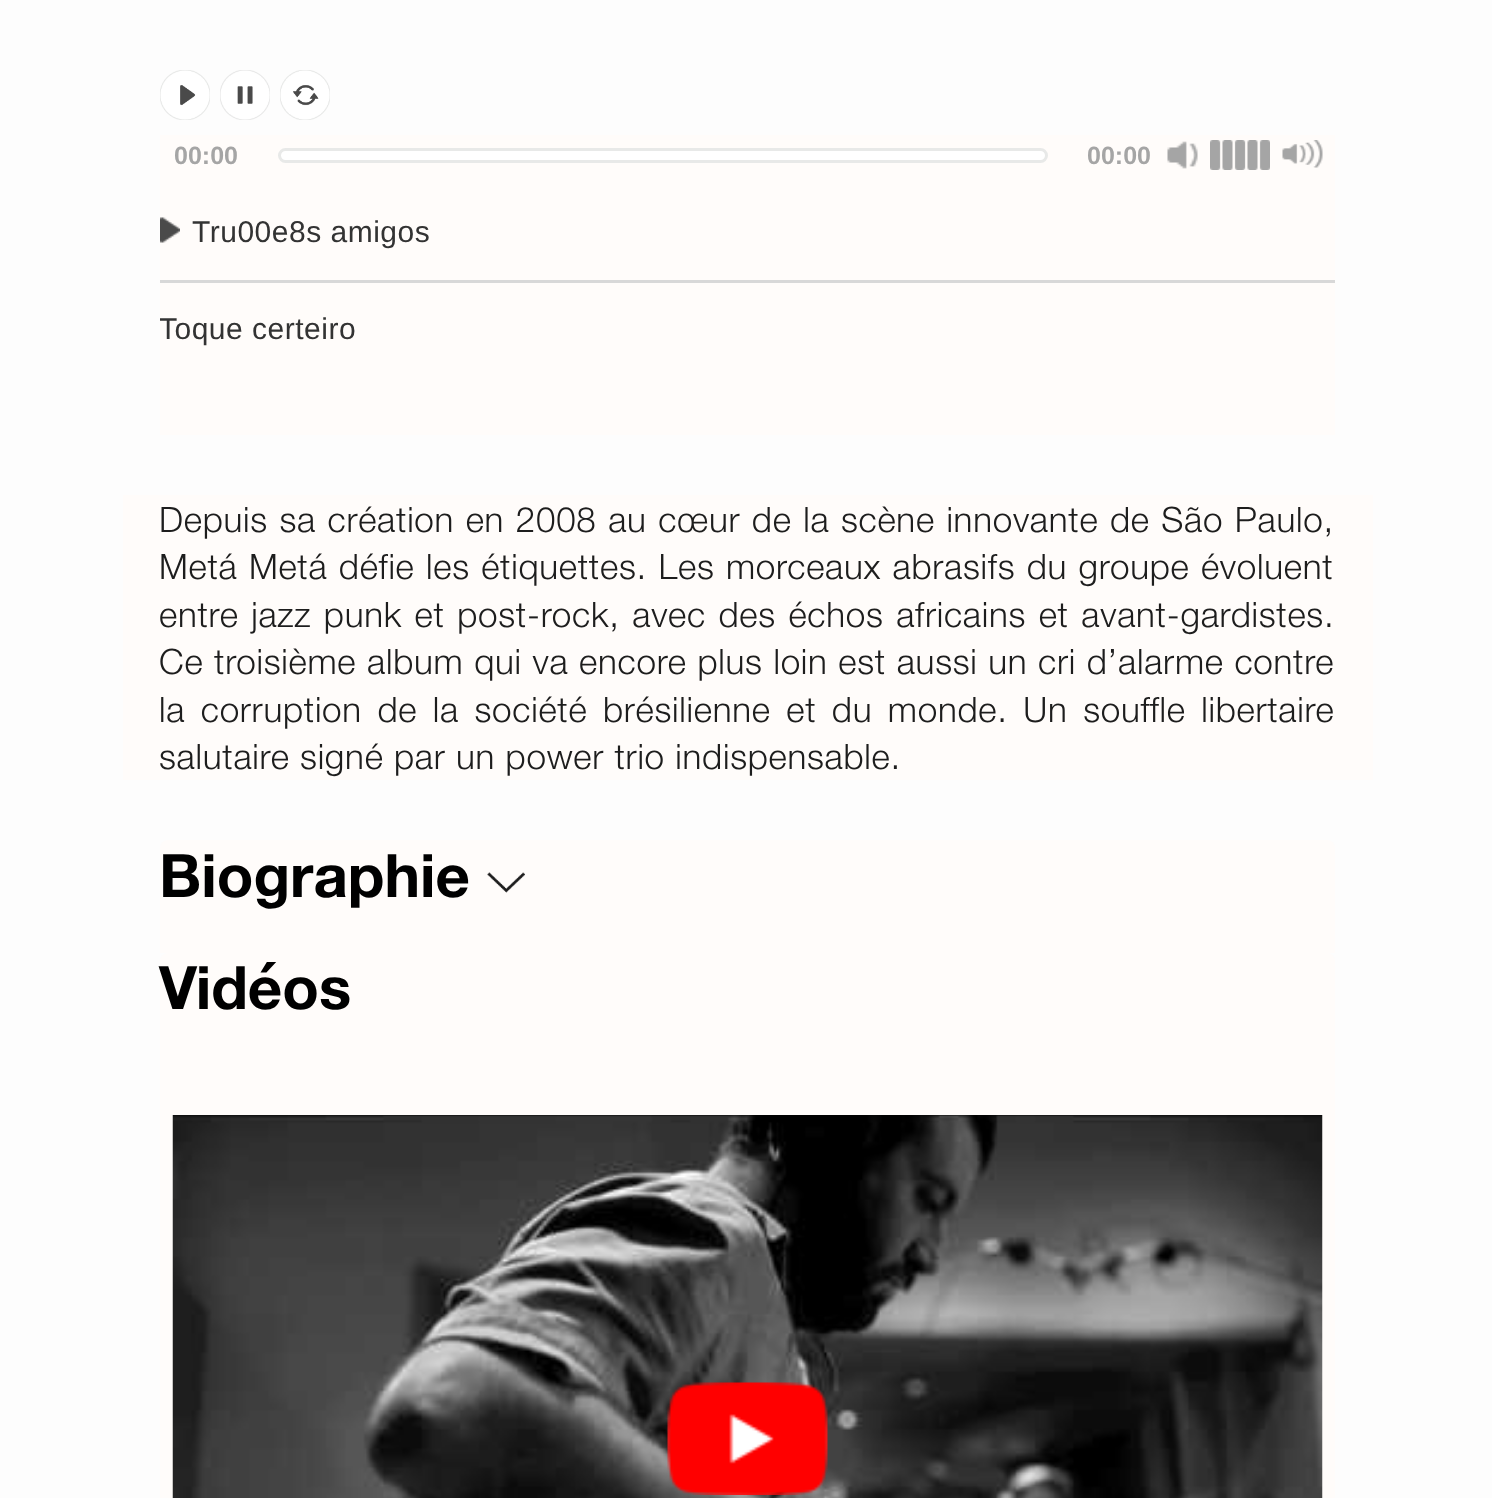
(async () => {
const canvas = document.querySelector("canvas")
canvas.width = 1492
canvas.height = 1498
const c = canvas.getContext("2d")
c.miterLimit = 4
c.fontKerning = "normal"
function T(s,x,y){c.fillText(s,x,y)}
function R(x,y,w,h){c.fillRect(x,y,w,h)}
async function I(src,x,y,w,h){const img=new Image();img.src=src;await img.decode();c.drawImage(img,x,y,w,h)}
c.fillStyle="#fdfdfd"
R(0,0,1492,1498)
await I("1.png",160,70,50,50)
await I("2.png",220,70,50,50)
await I("3.png",280,70,50,50)
c.fillStyle="#fffcfa"
R(160,135,1175,300)
c.font="bold 25px Liberation Sans"
c.fillStyle="#a5a5a5"
T("00:00",174,164)
c.fillStyle="#fff"
c.beginPath()
c.roundRect(279.5,149.5,767,12,6)
c.fill()
c.strokeStyle="#e8e9e8"
c.lineWidth=3
c.stroke()
c.fillStyle="#a5a5a5"
T("00:00",1087,164)
await I("4.png",1167,141,31,28)
await I("5.png",1210,140,60,30)
await I("6.png",1282,140,41,28)
c.fillStyle="#d8d8d8"
R(160,280,1175,3)
await I("7.png",160,217,20,26)
c.letterSpacing="0.5px"
c.font="30px Liberation Sans"
c.fillStyle="#333"
T("Tru00e8s amigos",192,242)
c.save()
c.beginPath()
c.rect(160,185,1175,225)
c.clip()
T("Toque certeiro",159,339)
c.restore()
c.fillStyle="#fffcfa"
R(123,495,1250,285)
c.letterSpacing="0.75px"
c.wordSpacing="1.1px"
c.font="300 35px Helvetica Neue"
c.fillStyle="#1d1d1d"
T("Depuis sa création en 2008 au cœur de la scène innovante de São Paulo,",159,532)
c.wordSpacing="1px"
T("Metá Metá défie les étiquettes. Les morceaux abrasifs du groupe évoluent",159,579)
c.wordSpacing="2.1px"
T("entre jazz punk et post-rock, avec des échos africains et avant-gardistes.",159,627)
c.wordSpacing="0.25px"
T("Ce troisième album qui va encore plus loin est aussi un cri d’alarme contre",159,674)
c.wordSpacing="5.1px"
T("la corruption de la société brésilienne et du monde. Un souffle libertaire",159,722)
c.wordSpacing="0px"
T("salutaire signé par un power trio indispensable.",159,769)
c.fillStyle="#fffcfa"
c.beginPath()
c.roundRect(160,840,1175,113,[8,8,0,0])
c.fill()
c.letterSpacing="0px"
c.font="bold 60px Helvetica Neue"
c.fillStyle="#000"
T("Biographie",159,897)
await I("8.png",487,872,38,21)
c.fillStyle="#fffcfa"
c.beginPath()
c.roundRect(160,953,1175,112,[8,8,0,0])
c.fill()
c.fillStyle="#000"
T("Vidéos",159,1009)
c.fillStyle="#fffcfa"
R(160,1065,1175,433)
await I("9.png",172,1115,1151,383)
await I("10.png",667,1382,161,113)
})()
